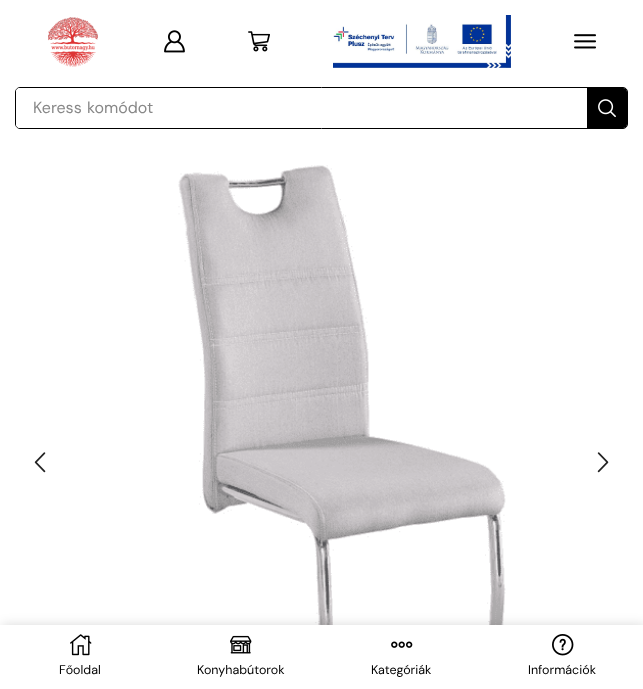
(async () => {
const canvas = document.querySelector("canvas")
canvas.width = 643
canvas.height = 689
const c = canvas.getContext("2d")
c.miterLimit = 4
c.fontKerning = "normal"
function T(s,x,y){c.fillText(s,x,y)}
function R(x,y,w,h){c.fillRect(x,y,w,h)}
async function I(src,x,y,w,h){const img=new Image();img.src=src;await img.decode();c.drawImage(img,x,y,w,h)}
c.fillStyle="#fff"
R(0,0,643,689)
await I("1.png",48,17,50,50)
await I("2.png",164,30,21,23)
await I("3.png",248,31,22,21)
await I("4.png",333,15,178,53)
await I("5.png",574,34,22,15)
c.beginPath()
c.roundRect(15.5,87.5,612,41,4.5)
c.strokeStyle="#000"
c.stroke()
c.beginPath()
c.roundRect(16,88,571,40,[4,0,0,4])
c.fill()
c.font="16px DM Sans"
c.fillStyle="#888"
T("Keress",33,113)
T("komódot",87,113)
c.fillStyle="#000"
c.beginPath()
c.roundRect(587,88,40,40,[0,4,4,0])
c.fill()
await I("6.png",598,99,18,19)
await I("7.png",34,452,12,21)
await I("8.png",178,165,328,460)
await I("9.png",597,452,12,21)
c.fillStyle="#00000026"
c.filter="blur(6px)"
c.beginPath()
c.rect(2,625,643,64)
c.fill()
c.filter="none"
c.fillStyle="#fff"
R(0,625,643,64)
await I("10.png",70,634,22,22)
c.font="12.5px DM Sans"
c.fillStyle="#000"
T("Főoldal",59,674)
await I("11.png",230,635,22,19)
T("Konyhabútorok",197,674)
await I("12.png",391,641,22,7)
T("Kategóriák",371,674)
await I("13.png",552,634,22,22)
T("Információk",528,674)
})()
